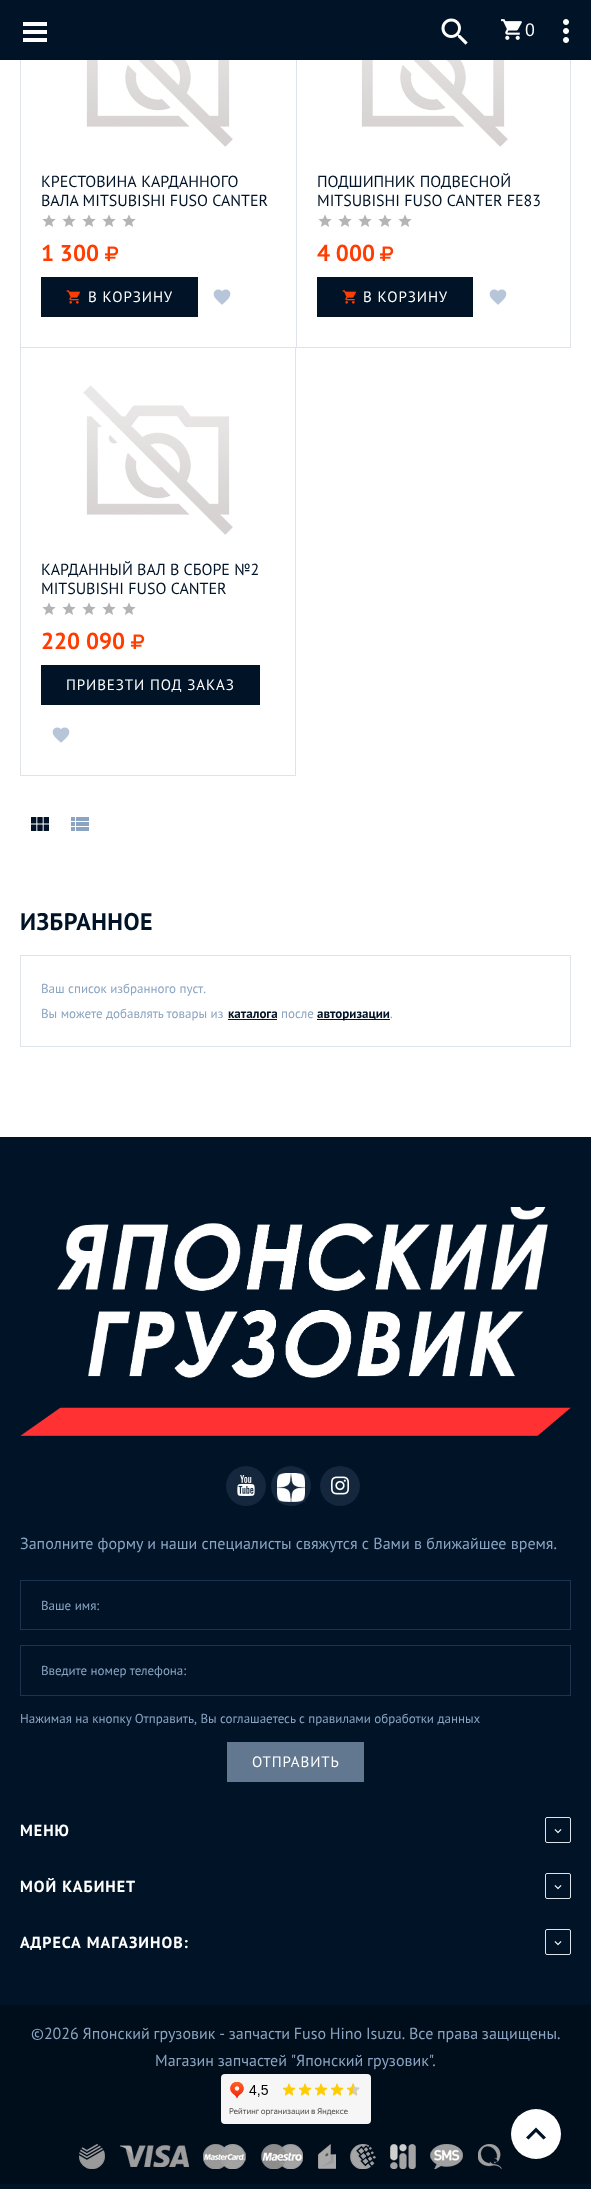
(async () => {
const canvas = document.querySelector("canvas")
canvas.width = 591
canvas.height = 2189
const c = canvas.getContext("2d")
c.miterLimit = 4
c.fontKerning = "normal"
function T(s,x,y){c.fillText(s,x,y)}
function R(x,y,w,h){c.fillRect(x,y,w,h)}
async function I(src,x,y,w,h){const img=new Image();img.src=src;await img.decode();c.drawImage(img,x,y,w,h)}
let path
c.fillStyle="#fff"
R(0,0,591,2189)
c.fillStyle="#011327"
R(0,0,591,60)
c.fillStyle="#fff"
R(23,30,24,4)
R(23,22,24,4)
R(23,38,24,4)
await I("1.png",441,18,27,27)
await I("2.png",501,19,21,21)
c.letterSpacing="1px"
c.font="18px PT Sans"
T("0",525,36)
await I("3.png",563,19,6,24)
c.fillStyle="#dfe4eb"
R(20,347,276,1)
R(20,60,1,288)
await I("4.png",86,60,147,87)
c.letterSpacing="0px"
c.wordSpacing="1px"
c.font="16px PT Sans"
c.fillStyle="#011327"
T("КРЕСТОВИНА КАРДАННОГО",41,187)
c.wordSpacing="0px"
T("ВАЛА MITSUBISHI FUSO CANTER",41,206)
await I("5.png",42,214,14,13)
await I("5.png",62,214,14,13)
await I("5.png",82,214,14,13)
await I("5.png",102,214,14,13)
await I("5.png",122,214,14,13)
c.font="bold 23px PT Sans"
c.fillStyle="#ff3d00"
T("1 300",41,261)
await I("6.png",105,246,14,15)
c.fillStyle="#011327"
R(41,277,157,40)
await I("7.png",66,290,14,14)
c.letterSpacing="0.9px"
c.font="15px PT Sans"
c.fillStyle="#fff"
T("В КОРЗИНУ",88,302)
await I("8.png",213,289,18,16)
c.fillStyle="#dfe4eb"
R(570,60,1,288)
R(296,347,275,1)
R(296,60,1,288)
await I("4.png",361,60,147,87)
c.letterSpacing="0px"
c.font="16px PT Sans"
c.fillStyle="#011327"
T("ПОДШИПНИК ПОДВЕСНОЙ",317,187)
T("MITSUBISHI FUSO CANTER FE83",317,206)
await I("5.png",318,214,14,13)
await I("5.png",338,214,14,13)
await I("5.png",358,214,14,13)
await I("5.png",378,214,14,13)
await I("5.png",398,214,14,13)
c.font="bold 23px PT Sans"
c.fillStyle="#ff3d00"
T("4 000",317,261)
await I("6.png",380,246,14,15)
c.fillStyle="#011327"
R(317,277,156,40)
await I("7.png",342,290,14,14)
c.letterSpacing="0.9px"
c.font="15px PT Sans"
c.fillStyle="#fff"
T("В КОРЗИНУ",363,302)
await I("8.png",489,289,18,16)
c.fillStyle="#dfe4eb"
R(295,348,1,428)
R(20,775,276,1)
R(20,348,1,428)
await I("9.png",83,385,150,150)
c.letterSpacing="0px"
c.font="16px PT Sans"
c.fillStyle="#011327"
T("КАРДАННЫЙ ВАЛ В СБОРЕ №2",41,575)
T("MITSUBISHI FUSO CANTER",41,594)
await I("5.png",42,602,14,13)
await I("5.png",62,602,14,13)
await I("5.png",82,602,14,13)
await I("5.png",102,602,14,13)
await I("5.png",122,602,14,13)
c.font="bold 23px PT Sans"
c.fillStyle="#ff3d00"
T("220 090",41,649)
await I("6.png",131,634,14,15)
c.fillStyle="#011327"
R(41,665,219,40)
c.letterSpacing="0.9px"
c.font="15px PT Sans"
c.fillStyle="#fff"
T("ПРИВЕЗТИ ПОД ЗАКАЗ",66,690)
await I("8.png",52,727,18,16)
await I("10.png",31,817,18,14)
await I("11.png",71,817,18,14)
c.letterSpacing="0.5px"
c.font="bold 24px PT Sans"
c.fillStyle="#011327"
T("ИЗБРАННОЕ",20,930)
c.strokeStyle="#dfe4eb"
c.strokeRect(20.5,955.5,550,91)
c.letterSpacing="0px"
c.font="13px PT Sans"
c.fillStyle="#8aa4c1"
T("Ваш список избранного пуст.",41,993)
T("Вы можете добавлять товары из",41,1018)
c.font="bold 13px PT Sans"
c.fillStyle="#011327"
T("каталога",228,1018)
R(228,1019,49,1)
c.font="13px PT Sans"
c.fillStyle="#8aa4c1"
T("после",281,1018)
c.fillStyle="#011327"
R(317,1019,73,1)
c.font="bold 13px PT Sans"
T("авторизации",317,1018)
c.font="13px PT Sans"
c.fillStyle="#8aa4c1"
T(".",390,1018)
c.fillStyle="#011327"
R(0,1137,591,1052)
await I("12.png",20,1207,551,229)
c.fillStyle="#14273c"
c.beginPath()
c.arc(246,1486,20,0,7)
c.fill()
await I("13.png",237,1475,18,21)
c.beginPath()
c.arc(291,1486,20,0,7)
c.fill()
await I("14.png",277,1473,28,29)
c.beginPath()
c.arc(340,1486,20,0,7)
c.fill()
await I("15.png",331,1476,18,19)
c.font="16px PT Sans"
c.fillStyle="#8aa4c1"
T("Заполните форму и наши специалисты свяжутся с Вами в ближайшее время.",20,1549)
c.strokeStyle="#1c344e"
c.strokeRect(20.5,1580.5,550,49)
c.font="13px PT Sans"
T("Ваше имя:",41,1610)
c.strokeRect(20.5,1645.5,550,50)
T("Введите номер телефона:",41,1675)
T("Нажимая на кнопку Отправить, Вы соглашаетесь с правилами обработки данных",20,1723)
c.fillStyle="#627890"
R(227,1742,137,40)
c.letterSpacing="0.9px"
c.font="15px PT Sans"
c.fillStyle="#fff"
T("ОТПРАВИТЬ",252,1767)
c.letterSpacing="1px"
c.font="bold 16px PT Sans"
T("МЕНЮ",20,1836)
c.beginPath()
c.roundRect(545.5,1817.5,25,25,1.5)
c.strokeStyle="#dfe4eb"
c.stroke()
await I("16.png",554,1829,8,5)
T("МОЙ КАБИНЕТ",20,1892)
c.beginPath()
c.roundRect(545.5,1873.5,25,25,1.5)
c.stroke()
await I("16.png",554,1885,8,5)
T("АДРЕСА МАГАЗИНОВ:",20,1948)
c.beginPath()
c.roundRect(545.5,1929.5,25,25,1.5)
c.stroke()
await I("16.png",554,1941,8,5)
c.fillStyle="#000d1b"
R(0,2005,591,179)
c.letterSpacing="0px"
c.wordSpacing="-0.5px"
c.font="16px PT Sans"
c.fillStyle="#8aa4c1"
T("©2026 Японский грузовик - запчасти Fuso Hino Isuzu. Все права защищены.",31,2039)
T("Магазин запчастей \"Японский грузовик\".",155,2066)
await I("17.png",221,2074,150,50)
await I("18.png",79,2144,26,25)
await I("19.png",120,2145,69,22)
await I("20.png",203,2144,43,25)
await I("21.png",261,2144,42,25)
await I("22.png",318,2144,18,25)
await I("23.png",350,2144,26,25)
await I("24.png",390,2144,26,25)
await I("25.png",430,2144,33,25)
await I("26.png",478,2144,24,25)
c.fillStyle="#fff"
c.beginPath()
c.arc(536,2134,25,0,7)
c.fill()
c.fillStyle="#011327"
path = new Path2D("M528.5 2139.5l-2.5-2l10-10l10 10l-2.5 2l-7.5-7.5z")
c.fill(path)
})()
